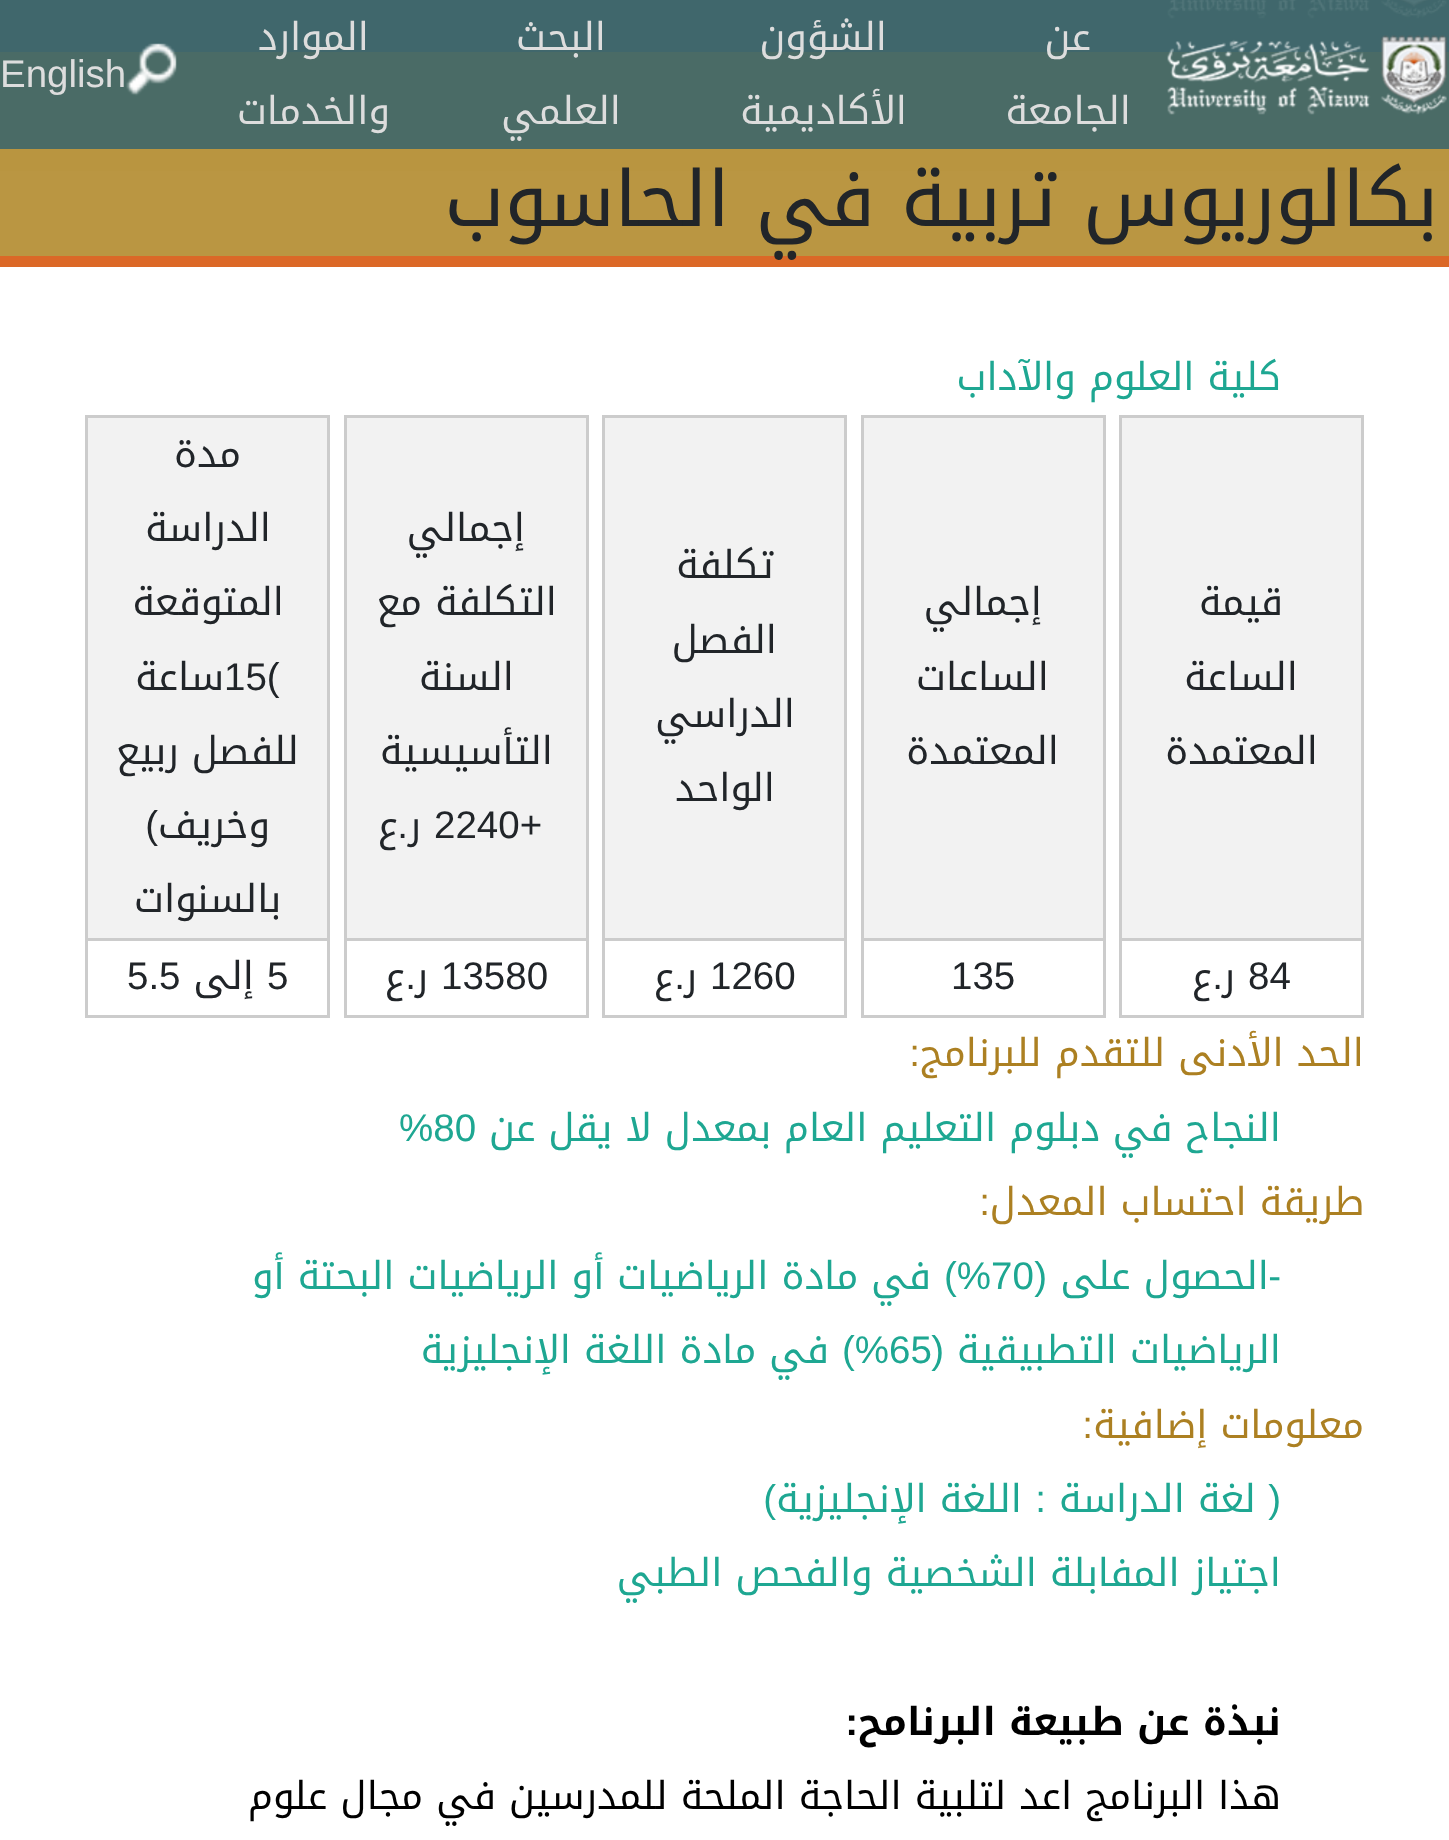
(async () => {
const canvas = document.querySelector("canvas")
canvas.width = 1449
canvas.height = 1840
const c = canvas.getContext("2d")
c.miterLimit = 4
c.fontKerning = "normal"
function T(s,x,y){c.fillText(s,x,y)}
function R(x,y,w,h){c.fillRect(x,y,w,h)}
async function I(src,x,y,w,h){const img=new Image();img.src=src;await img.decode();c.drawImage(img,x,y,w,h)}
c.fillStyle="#fff"
R(0,0,1449,1840)
c.fillStyle="#517579"
R(0,0,1449,52)
c.fillStyle="#db6827"
R(0,160,1449,11)
await I("1.png",1167,0,280,19)
c.fillStyle="#b99642"
R(0,52,1449,108)
c.fillStyle="#3e666ae6"
R(0,0,1449,256)
c.fillStyle="#db6827"
R(0,256,1449,11)
await I("2.png",1167,35,280,80)
c.direction="rtl"
c.font="38.5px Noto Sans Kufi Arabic"
c.fillStyle="#ddd"
T("عن",1091,50)
T("الجامعة",1131,124)
T("الشؤون",887,50)
T("الأكاديمية",907,124)
T("البحث",606,50)
T("العلمي",621,124)
T("الموارد",369,50)
T("والخدمات",390,124)
await I("3.png",126,43,51,53)
c.direction="ltr"
c.font="38.5px Liberation Sans"
T("English",0,87)
c.fillStyle="#c59a3ce6"
R(0,149,1449,107)
c.direction="rtl"
c.font="77px Noto Sans Kufi Arabic"
c.fillStyle="#212529"
T("بكالوريوس تربية في الحاسوب",1438,226)
c.font="38.5px Noto Sans Kufi Arabic"
c.fillStyle="#1ea792"
T("كلية العلوم والآداب",1281,390)
c.fillStyle="#f2f2f2"
R(1122,418,239,520)
c.fillStyle="#ccc"
R(1119,415,245,3)
R(1119,938,245,3)
R(1361,938,3,80)
R(1361,415,3,526)
R(1119,1015,245,3)
R(1119,938,3,80)
R(1119,415,3,526)
c.fillStyle="#212529"
T("قيمة",1283,615)
T("الساعة",1298,690)
T("المعتمدة",1318,764)
c.fillStyle="#f2f2f2"
R(864,418,239,520)
c.fillStyle="#ccc"
R(861,415,245,3)
R(861,938,245,3)
R(1103,938,3,80)
R(1103,415,3,526)
R(861,1015,245,3)
R(861,938,3,80)
R(861,415,3,526)
c.fillStyle="#212529"
T("إجمالي",1042,615)
T("الساعات",1049,690)
T("المعتمدة",1059,764)
c.fillStyle="#f2f2f2"
R(605,418,239,520)
c.fillStyle="#ccc"
R(602,415,245,3)
R(602,938,245,3)
R(844,938,3,80)
R(844,415,3,526)
R(602,1015,245,3)
R(602,938,3,80)
R(602,415,3,526)
c.fillStyle="#212529"
T("تكلفة",774,578)
T("الفصل",777,653)
T("الدراسي",795,727)
T("الواحد",775,801)
c.fillStyle="#f2f2f2"
R(347,418,239,520)
c.fillStyle="#ccc"
R(344,415,245,3)
R(344,938,245,3)
R(586,938,3,80)
R(586,415,3,526)
R(344,1015,245,3)
R(344,938,3,80)
R(344,415,3,526)
c.fillStyle="#212529"
T("إجمالي",525,541)
T("التكلفة مع",557,615)
T("السنة",514,690)
T("التأسيسية",553,764)
c.direction="ltr"
c.font="38.5px Liberation Sans"
T("2240+",434,838)
c.direction="rtl"
c.font="38.5px Noto Sans Kufi Arabic"
T("ر",421,838)
c.font="38.5px Liberation Sans"
T(".",408,838)
c.font="38.5px Noto Sans Kufi Arabic"
T("ع",398,838)
c.fillStyle="#f2f2f2"
R(88,418,239,520)
c.fillStyle="#ccc"
R(85,415,245,3)
R(85,938,245,3)
R(327,938,3,80)
R(327,415,3,526)
R(85,1015,245,3)
R(85,938,3,80)
R(85,415,3,526)
c.fillStyle="#212529"
T("مدة",241,467)
T("الدراسة",271,541)
T("المتوقعة",284,615)
c.direction="ltr"
c.font="38.5px Liberation Sans"
T("15(",224,690)
c.direction="rtl"
c.font="38.5px Noto Sans Kufi Arabic"
T("ساعة",224,690)
T("للفصل ربيع",299,764)
T("وخريف",270,838)
c.font="38.5px Liberation Sans"
T(")",158,838)
c.font="38.5px Noto Sans Kufi Arabic"
T("بالسنوات",281,912)
c.direction="ltr"
c.font="38.5px Liberation Sans"
T("84",1248,989)
c.direction="rtl"
c.font="38.5px Noto Sans Kufi Arabic"
T("ر",1235,989)
c.font="38.5px Liberation Sans"
T(".",1223,989)
c.font="38.5px Noto Sans Kufi Arabic"
T("ع",1212,989)
c.direction="ltr"
c.font="38.5px Liberation Sans"
T("135",951,989)
T("1260",710,989)
c.direction="rtl"
c.font="38.5px Noto Sans Kufi Arabic"
T("ر",697,989)
c.font="38.5px Liberation Sans"
T(".",685,989)
c.font="38.5px Noto Sans Kufi Arabic"
T("ع",674,989)
c.direction="ltr"
c.font="38.5px Liberation Sans"
T("13580",441,989)
c.direction="rtl"
c.font="38.5px Noto Sans Kufi Arabic"
T("ر",428,989)
c.font="38.5px Liberation Sans"
T(".",416,989)
c.font="38.5px Noto Sans Kufi Arabic"
T("ع",405,989)
c.direction="ltr"
c.font="38.5px Liberation Sans"
T("5",267,989)
c.direction="rtl"
c.font="38.5px Noto Sans Kufi Arabic"
T("إلى",254,989)
c.direction="ltr"
c.font="38.5px Liberation Sans"
T("5.5",127,989)
c.direction="rtl"
c.font="38.5px Noto Sans Kufi Arabic"
c.fillStyle="#ac8022"
T("الحد الأدنى للتقدم للبرنامج",1364,1066)
c.font="38.5px Liberation Sans"
T(":",920,1066)
c.font="38.5px Noto Sans Kufi Arabic"
c.fillStyle="#1ea792"
T("النجاح في دبلوم التعليم العام",1281,1141)
T("بمعدل لا يقل عن",771,1141)
c.direction="ltr"
c.font="38.5px Liberation Sans"
T("%80",399,1141)
c.direction="rtl"
c.font="38.5px Noto Sans Kufi Arabic"
c.fillStyle="#ac8022"
T("طريقة احتساب المعدل",1364,1215)
c.font="38.5px Liberation Sans"
T(":",990,1215)
c.fillStyle="#1ea792"
T("-",1281,1289)
c.font="38.5px Noto Sans Kufi Arabic"
T("الحصول على",1269,1289)
c.font="38.5px Liberation Sans"
T("(",1047,1289)
c.direction="ltr"
T("70",991,1289)
c.direction="rtl"
T("%)",991,1289)
c.font="38.5px Noto Sans Kufi Arabic"
T("في مادة الرياضيات أو الرياضيات البحتة أو",931,1289)
T("الرياضيات التطبيقية",1281,1363)
c.font="38.5px Liberation Sans"
T("(",944,1363)
c.direction="ltr"
T("65",889,1363)
c.direction="rtl"
T("%)",889,1363)
c.font="38.5px Noto Sans Kufi Arabic"
T("في مادة اللغة الإنجليزية",829,1363)
c.fillStyle="#ac8022"
T("معلومات إضافية",1364,1438)
c.font="38.5px Liberation Sans"
T(":",1093,1438)
c.fillStyle="#1ea792"
T("(",1281,1512)
c.font="38.5px Noto Sans Kufi Arabic"
T("لغة الدراسة",1256,1512)
c.font="38.5px Liberation Sans"
T(":",1046,1512)
c.font="38.5px Noto Sans Kufi Arabic"
T("اللغة الإنجليزية",1022,1512)
c.font="38.5px Liberation Sans"
T(")",776,1512)
c.font="38.5px Noto Sans Kufi Arabic"
T("اجتياز المفابلة الشخصية والفحص الطبي",1281,1586)
c.font="bold 38.5px Noto Sans Kufi Arabic"
c.fillStyle="#000"
T("نبذة عن طبيعة البرنامح",1281,1735)
c.font="bold 38.5px Liberation Sans"
T(":",858,1735)
c.font="38.5px Noto Sans Kufi Arabic"
T("هذا البرنامج اعد لتلبية الحاجة الملحة للمدرسين في مجال علوم",1281,1809)
})()
